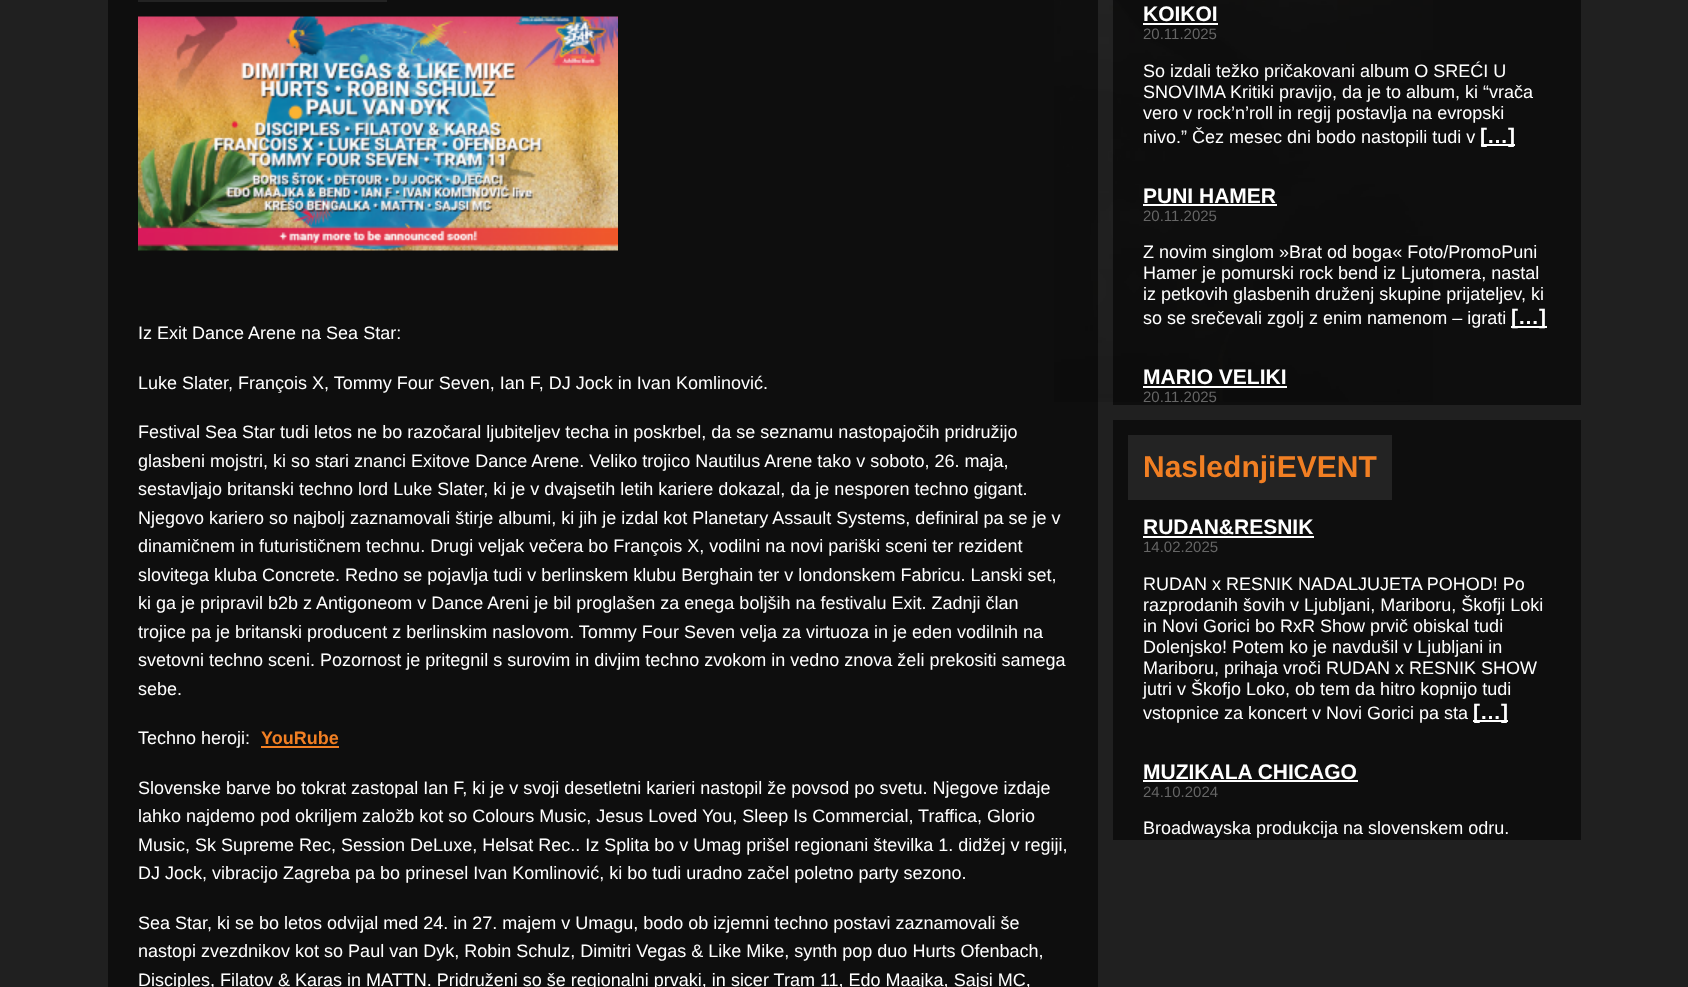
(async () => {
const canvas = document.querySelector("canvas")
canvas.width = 1688
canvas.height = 987
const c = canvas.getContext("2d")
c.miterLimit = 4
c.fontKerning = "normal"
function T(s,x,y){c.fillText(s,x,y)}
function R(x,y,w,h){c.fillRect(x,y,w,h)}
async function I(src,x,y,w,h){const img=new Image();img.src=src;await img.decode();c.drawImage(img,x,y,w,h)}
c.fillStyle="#202020"
R(0,0,1688,987)
await I("1.png",1054,0,379,402)
c.fillStyle="#0000008f"
R(108,0,990,987)
c.fillStyle="#232323"
R(138,0,249,2)
await I("2.png",138,16,480,235)
c.font="18px Liberation Sans"
c.fillStyle="#fff"
T("Iz Exit Dance Arene na Sea Star:",138,339)
T("Luke Slater, François X, Tommy Four Seven, Ian F, DJ Jock in Ivan Komlinović.",138,389)
T("Festival Sea Star tudi letos ne bo razočaral ljubiteljev techa in poskrbel, da se seznamu nastopajočih pridružijo",138,438)
T("glasbeni mojstri, ki so stari znanci Exitove Dance Arene. Veliko trojico Nautilus Arene tako v soboto, 26. maja,",138,467)
T("sestavljajo britanski techno lord Luke Slater, ki je v dvajsetih letih kariere dokazal, da je nesporen techno gigant.",138,495)
T("Njegovo kariero so najbolj zaznamovali štirje albumi, ki jih je izdal kot Planetary Assault Systems, definiral pa se je v",138,524)
T("dinamičnem in futurističnem technu. Drugi veljak večera bo François X, vodilni na novi pariški sceni ter rezident",138,552)
T("slovitega kluba Concrete. Redno se pojavlja tudi v berlinskem klubu Berghain ter v londonskem Fabricu. Lanski set,",138,581)
T("ki ga je pripravil b2b z Antigoneom v Dance Areni je bil proglašen za enega boljših na festivalu Exit. Zadnji član",138,609)
T("trojice pa je britanski producent z berlinskim naslovom. Tommy Four Seven velja za virtuoza in je eden vodilnih na",138,638)
T("svetovni techno sceni. Pozornost je pritegnil s surovim in divjim techno zvokom in vedno znova želi prekositi samega",138,666)
T("sebe.",138,695)
T("Techno heroji:",138,744)
c.font="bold 18px Liberation Sans"
c.fillStyle="#f17f23"
T("YouRube",261,744)
R(261,746,78,2)
c.font="18px Liberation Sans"
c.fillStyle="#fff"
T("Slovenske barve bo tokrat zastopal Ian F, ki je v svoji desetletni karieri nastopil že povsod po svetu. Njegove izdaje",138,794)
T("lahko najdemo pod okriljem založb kot so Colours Music, Jesus Loved You, Sleep Is Commercial, Traffica, Glorio",138,822)
T("Music, Sk Supreme Rec, Session DeLuxe, Helsat Rec.. Iz Splita bo v Umag prišel regionani številka 1. didžej v regiji,",138,851)
T("DJ Jock, vibracijo Zagreba pa bo prinesel Ivan Komlinović, ki bo tudi uradno začel poletno party sezono.",138,879)
T("Sea Star, ki se bo letos odvijal med 24. in 27. majem v Umagu, bodo ob izjemni techno postavi zaznamovali še",138,929)
T("nastopi zvezdnikov kot so Paul van Dyk, Robin Schulz, Dimitri Vegas & Like Mike, synth pop duo Hurts Ofenbach,",138,957)
T("Disciples, Filatov & Karas in MATTN. Pridruženi so še regionalni prvaki, in sicer Tram 11, Edo Maajka, Sajsi MC,",138,986)
c.fillStyle="#0000008f"
R(1113,0,468,405)
c.font="bold 21px Liberation Sans"
c.fillStyle="#fff"
T("KOIKOI",1143,21)
R(1143,23,75,2)
c.font="15px Liberation Sans"
c.fillStyle="#666"
T("20.11.2025",1143,39)
c.font="18px Liberation Sans"
c.fillStyle="#fff"
T("So izdali težko pričakovani album O SREĆI U",1143,77)
T("SNOVIMA Kritiki pravijo, da je to album, ki “vrača",1143,98)
T("vero v rock’n’roll in regij postavlja na evropski",1143,119)
T("nivo.” Čez mesec dni bodo nastopili tudi v",1143,143)
R(1481,144,34,2)
c.save()
c.beginPath()
c.rect(1143,2,408,145)
c.clip()
c.font="bold 21px Liberation Sans"
T("[…]",1480,143)
c.restore()
c.font="bold 21px Liberation Sans"
T("PUNI HAMER",1143,203)
R(1143,204,134,2)
c.font="15px Liberation Sans"
c.fillStyle="#666"
T("20.11.2025",1143,221)
c.font="18px Liberation Sans"
c.fillStyle="#fff"
T("Z novim singlom »Brat od boga« Foto/PromoPuni",1143,258)
T("Hamer je pomurski rock bend iz Ljutomera, nastal",1143,279)
T("iz petkovih glasbenih druženj skupine prijateljev, ki",1143,300)
T("so se srečevali zgolj z enim namenom – igrati",1143,324)
R(1511,326,36,2)
c.font="bold 21px Liberation Sans"
T("[…]",1511,324)
T("MARIO VELIKI",1143,384)
R(1143,386,144,2)
c.font="15px Liberation Sans"
c.fillStyle="#666"
T("20.11.2025",1143,402)
c.fillStyle="#0e0e0e"
R(1113,420,468,420)
c.fillStyle="#232323"
R(1128,435,264,65)
c.wordSpacing="-8px"
c.font="bold 30px Liberation Sans"
c.fillStyle="#f17f23"
T("Naslednji EVENT",1143,477)
c.wordSpacing="0px"
c.font="bold 21px Liberation Sans"
c.fillStyle="#fff"
T("RUDAN&RESNIK",1143,534)
R(1143,536,171,2)
c.font="15px Liberation Sans"
c.fillStyle="#666"
T("14.02.2025",1143,552)
c.font="18px Liberation Sans"
c.fillStyle="#fff"
T("RUDAN x RESNIK NADALJUJETA POHOD! Po",1143,590)
T("razprodanih šovih v Ljubljani, Mariboru, Škofji Loki",1143,611)
T("in Novi Gorici bo RxR Show prvič obiskal tudi",1143,632)
T("Dolenjsko! Potem ko je navdušil v Ljubljani in",1143,653)
T("Mariboru, prihaja vroči RUDAN x RESNIK SHOW",1143,674)
T("jutri v Škofjo Loko, ob tem da hitro kopnijo tudi",1143,695)
T("vstopnice za koncert v Novi Gorici pa sta",1143,719)
R(1473,720,35,2)
c.save()
c.beginPath()
c.rect(1143,515,408,208)
c.clip()
c.font="bold 21px Liberation Sans"
T("[…]",1473,719)
c.restore()
c.font="bold 21px Liberation Sans"
T("MUZIKALA CHICAGO",1143,779)
R(1143,780,215,2)
c.font="15px Liberation Sans"
c.fillStyle="#666"
T("24.10.2024",1143,797)
c.font="18px Liberation Sans"
c.fillStyle="#fff"
T("Broadwayska produkcija na slovenskem odru.",1143,834)
})()
